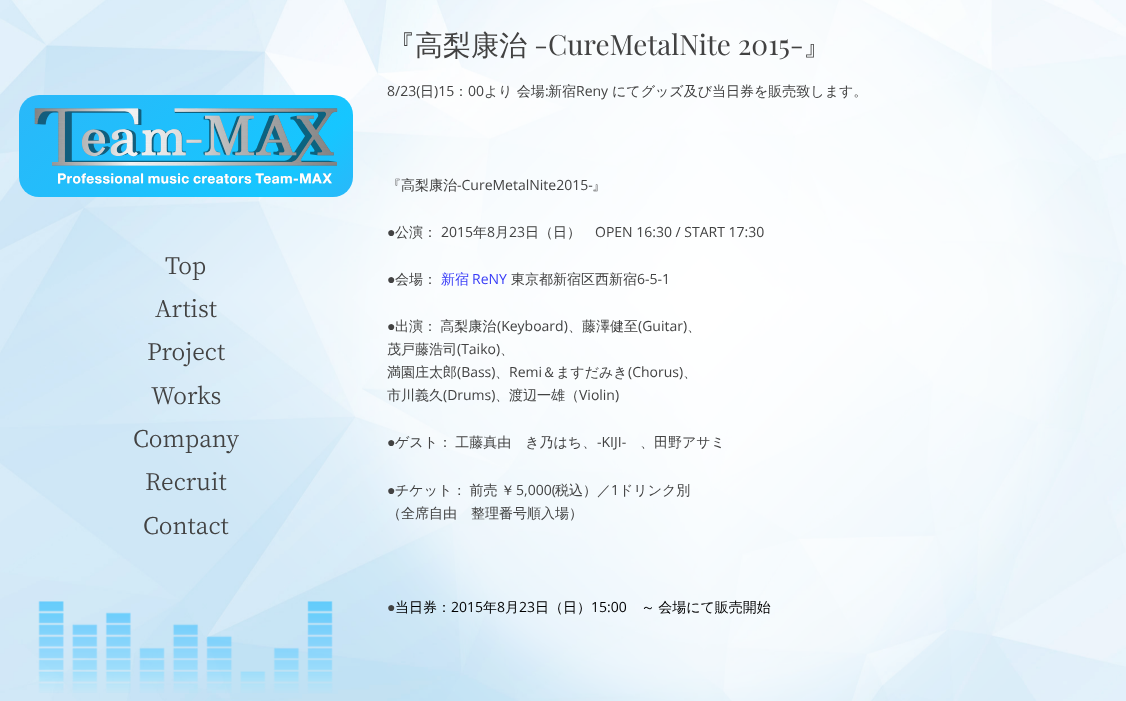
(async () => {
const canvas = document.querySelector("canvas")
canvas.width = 1126
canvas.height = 701
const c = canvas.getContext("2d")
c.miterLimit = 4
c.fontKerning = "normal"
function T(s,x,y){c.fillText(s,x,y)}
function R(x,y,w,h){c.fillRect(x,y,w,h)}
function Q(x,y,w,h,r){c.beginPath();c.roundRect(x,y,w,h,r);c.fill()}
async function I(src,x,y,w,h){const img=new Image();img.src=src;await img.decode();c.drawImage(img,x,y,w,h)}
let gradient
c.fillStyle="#fff"
R(0,0,1126,701)
await I("1.png",0,0,1126,701)
await I("2.png",38,601,295,92)
gradient = c.createLinearGradient(77,37,295,255)
gradient.addColorStop(0,"#2ab8f9")
gradient.addColorStop(.8,"#16c6ff")
gradient.addColorStop(1,"#2ab8f9")
c.fillStyle = gradient
Q(19,95,334,102,20)
await I("3.png",34,108,304,76)
c.font="23px Noto Serif JP"
c.fillStyle="#424242"
T("Top",165,274)
T("Artist",155,317)
T("Project",147,360)
T("Works",151,404)
T("Company",133,447)
T("Recruit",145,490)
T("Contact",143,534)
c.font="500 28px WenQuanYi Zen Hei"
T("『高梨康治",387,55)
c.font="28px Playfair Display"
T("-CureMetalNite 2015-",534,55)
c.font="500 28px WenQuanYi Zen Hei"
T("』",803,55)
c.font="14px Open Sans"
T("8/23(",387,96)
c.font="500 14px WenQuanYi Zen Hei"
T("日",420,96)
c.font="14px Open Sans"
T(")15",434,96)
c.font="500 14px WenQuanYi Zen Hei"
T("：",454,96)
c.font="14px Open Sans"
T("00",468,96)
c.font="500 14px WenQuanYi Zen Hei"
T("より 会場",484,96)
c.font="14px Open Sans"
T(":",545,96)
c.font="500 14px WenQuanYi Zen Hei"
T("新宿",548,96)
c.font="14px Open Sans"
T("Reny",576,96)
c.font="500 14px WenQuanYi Zen Hei"
T("にてグッズ及び当日券を販売致します。",612,96)
T("『高梨康治",387,190)
c.font="14px Open Sans"
T("-CureMetalNite2015-",457,190)
c.font="500 14px WenQuanYi Zen Hei"
T("』",592,190)
c.font="14px Liberation Sans"
T("●",387,237)
c.font="500 14px WenQuanYi Zen Hei"
T("公演：",395,237)
c.font="14px Open Sans"
T("2015",441,237)
c.font="500 14px WenQuanYi Zen Hei"
T("年",473,237)
c.font="14px Open Sans"
T("8",487,237)
c.font="500 14px WenQuanYi Zen Hei"
T("月",495,237)
c.font="14px Open Sans"
T("23",509,237)
c.font="500 14px WenQuanYi Zen Hei"
T("日（日）",525,237)
c.font="14px Open Sans"
T("OPEN 16:30 / START 17:30",595,237)
c.font="14px Liberation Sans"
T("●",387,284)
c.font="500 14px WenQuanYi Zen Hei"
T("会場：",395,284)
c.fillStyle="#383cf7"
T("新宿",441,284)
c.font="14px Open Sans"
T("ReNY",472,284)
c.font="500 14px WenQuanYi Zen Hei"
c.fillStyle="#424242"
T("東京都新宿区西新宿",511,284)
c.font="14px Open Sans"
T("6-5-1",637,284)
c.font="14px Liberation Sans"
T("●",387,331)
c.wordSpacing="-1px"
c.font="500 14px WenQuanYi Zen Hei"
T("出演： 高梨康治",395,331)
c.wordSpacing="0px"
c.font="14px Open Sans"
T("(Keyboard)",497,331)
c.font="500 14px WenQuanYi Zen Hei"
T("、藤澤健至",568,331)
c.font="14px Open Sans"
T("(Guitar)",638,331)
c.font="500 14px WenQuanYi Zen Hei"
T("、",687,331)
T("茂戸藤浩司",387,354)
c.font="14px Open Sans"
T("(Taiko)",457,354)
c.font="500 14px WenQuanYi Zen Hei"
T("、",500,354)
T("満園庄太郎",387,377)
c.font="14px Open Sans"
T("(Bass)",457,377)
c.font="500 14px WenQuanYi Zen Hei"
T("、",495,377)
c.font="14px Open Sans"
T("Remi",509,377)
c.font="500 14px WenQuanYi Zen Hei"
T("＆ますだみき",542,377)
c.font="14px Open Sans"
T("(Chorus)",628,377)
c.font="500 14px WenQuanYi Zen Hei"
T("、",683,377)
T("市川義久",387,400)
c.font="14px Open Sans"
T("(Drums)",443,400)
c.font="500 14px WenQuanYi Zen Hei"
T("、渡辺一雄（",495,400)
c.font="14px Open Sans"
T("Violin)",579,400)
c.font="14px Liberation Sans"
T("●",387,447)
c.wordSpacing="-1px"
c.font="500 14px WenQuanYi Zen Hei"
T("ゲスト： 工藤真由　き乃はち、",395,447)
c.wordSpacing="0px"
c.font="14px Open Sans"
T("-KIJI-",597,447)
c.font="500 14px WenQuanYi Zen Hei"
T("、田野アサミ",640,447)
c.font="14px Liberation Sans"
T("●",387,495)
c.wordSpacing="-1px"
c.font="500 14px WenQuanYi Zen Hei"
T("チケット： 前売 ￥",395,495)
c.wordSpacing="0px"
c.font="14px Open Sans"
T("5,000(",516,495)
c.font="500 14px WenQuanYi Zen Hei"
T("税込）／",555,495)
c.font="14px Open Sans"
T("1",611,495)
c.font="500 14px WenQuanYi Zen Hei"
T("ドリンク別",619,495)
T("（全席自由　整理番号順入場）",387,518)
c.font="14px Liberation Sans"
T("●",387,612)
c.font="500 14px WenQuanYi Zen Hei"
c.fillStyle="#000"
T("当日券：",395,612)
c.font="14px Open Sans"
T("2015",451,612)
c.font="500 14px WenQuanYi Zen Hei"
T("年",483,612)
c.font="14px Open Sans"
T("8",497,612)
c.font="500 14px WenQuanYi Zen Hei"
T("月",505,612)
c.font="14px Open Sans"
T("23",519,612)
c.font="500 14px WenQuanYi Zen Hei"
T("日（日）",535,612)
c.font="14px Open Sans"
T("15:00",591,612)
c.wordSpacing="-1px"
c.font="500 14px WenQuanYi Zen Hei"
T("～ 会場にて販売開始",641,612)
})()
